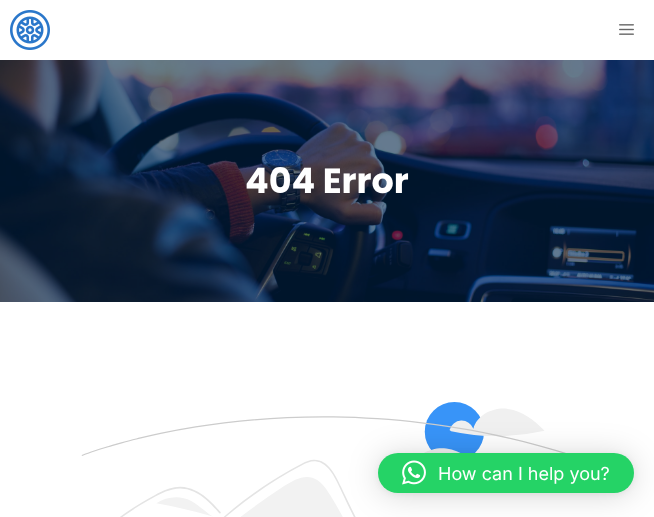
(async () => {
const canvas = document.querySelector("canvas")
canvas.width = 654
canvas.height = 517
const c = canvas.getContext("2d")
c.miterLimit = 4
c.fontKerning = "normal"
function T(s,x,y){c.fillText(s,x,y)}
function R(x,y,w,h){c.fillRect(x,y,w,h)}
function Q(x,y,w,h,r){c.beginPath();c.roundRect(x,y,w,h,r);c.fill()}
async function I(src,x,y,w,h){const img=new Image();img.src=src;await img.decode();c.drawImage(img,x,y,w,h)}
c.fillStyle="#fff"
R(0,0,654,517)
await I("1.png",10,10,40,40)
await I("2.png",619,24,15,11)
c.fillStyle="#002448"
R(0,60,654,242)
await I("3.png",0,60,654,242)
c.font="bold 35px Poppins"
c.fillStyle="#fff"
T("404 Error",245,193)
await I("4.png",81,402,485,115)
c.fillStyle="#00000029"
c.filter="blur(16px)"
c.beginPath()
c.roundRect(378,455,256,40,20)
c.fill()
c.filter="none"
c.fillStyle="#0000000f"
c.filter="blur(3px)"
c.beginPath()
c.roundRect(378,454,256,40,20)
c.fill()
c.filter="none"
c.fillStyle="#25d366"
Q(378,453,256,40,20)
await I("5.png",402,460,24,25)
c.font="18px Inter"
c.fillStyle="#fff"
T("How can I help you?",438,480)
})()
